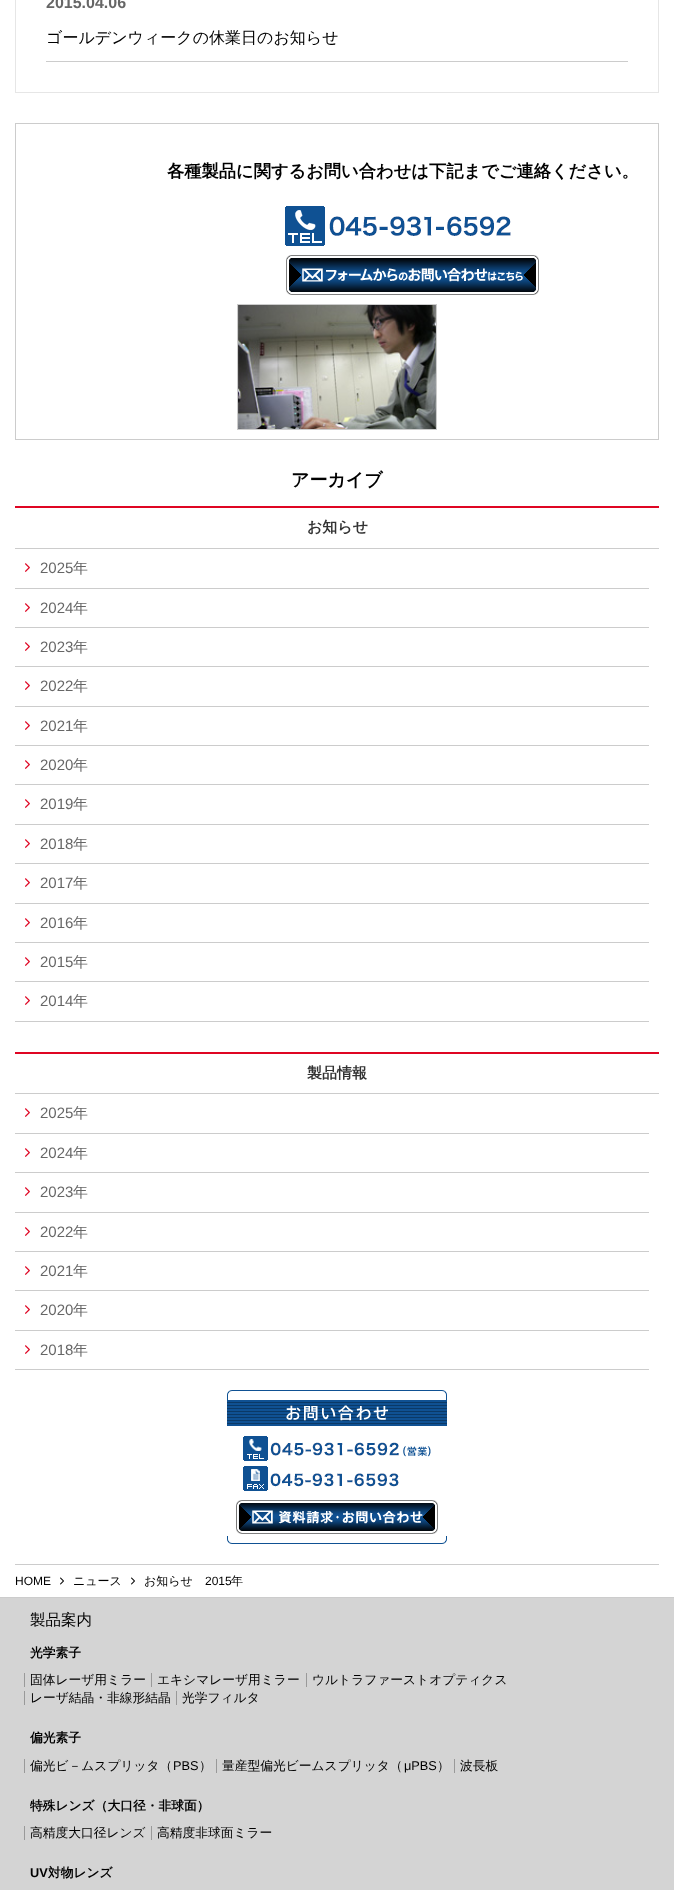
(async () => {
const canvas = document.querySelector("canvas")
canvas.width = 674
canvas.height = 1890
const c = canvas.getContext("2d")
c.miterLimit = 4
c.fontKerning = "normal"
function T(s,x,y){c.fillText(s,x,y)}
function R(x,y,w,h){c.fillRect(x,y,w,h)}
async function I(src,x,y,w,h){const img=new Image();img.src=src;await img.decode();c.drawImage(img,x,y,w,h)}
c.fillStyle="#fff"
R(0,0,674,1890)
c.strokeStyle="#e6e6e6"
c.strokeRect(15.5,-.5,643,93)
c.font="bold 16px Liberation Sans"
c.fillStyle="#666"
T("2015.04.06",46,8)
c.fillStyle="#ccc"
R(46,61,582,1)
c.font="500 16px WenQuanYi Zen Hei"
c.fillStyle="#000"
T("ゴールデンウィークの休業日のお知らせ",46,43)
c.strokeStyle="#ccc"
c.strokeRect(15.5,123.5,643,316)
c.font="bold 17.25px WenQuanYi Zen Hei"
T("各種製品に関するお問い合わせは下記までご連絡ください。",167,177)
await I("1.png",285,206,226,40)
await I("2.png",286,255,253,40)
c.strokeRect(237.5,304.5,199,125)
await I("3.png",238,305,198,124)
c.font="bold 18px WenQuanYi Zen Hei"
T("アーカイブ",291,486)
c.fillStyle="#df0523"
R(15,506,644,2)
c.fillStyle="#ccc"
R(15,548,644,1)
c.font="bold 15px WenQuanYi Zen Hei"
c.fillStyle="#333"
T("お知らせ",307,532)
c.fillStyle="#ccc"
R(15,588,634,1)
await I("4.png",25,563,5,9)
c.font="15px Liberation Sans"
c.fillStyle="#666"
T("2025",40,573)
c.font="500 15px WenQuanYi Zen Hei"
T("年",73,573)
c.fillStyle="#ccc"
R(15,627,634,1)
await I("4.png",25,603,5,9)
c.font="15px Liberation Sans"
c.fillStyle="#666"
T("2024",40,613)
c.font="500 15px WenQuanYi Zen Hei"
T("年",73,613)
c.fillStyle="#ccc"
R(15,666,634,1)
await I("4.png",25,642,5,9)
c.font="15px Liberation Sans"
c.fillStyle="#666"
T("2023",40,652)
c.font="500 15px WenQuanYi Zen Hei"
T("年",73,652)
c.fillStyle="#ccc"
R(15,706,634,1)
await I("4.png",25,681,5,9)
c.font="15px Liberation Sans"
c.fillStyle="#666"
T("2022",40,691)
c.font="500 15px WenQuanYi Zen Hei"
T("年",73,691)
c.fillStyle="#ccc"
R(15,745,634,1)
await I("4.png",25,721,5,9)
c.font="15px Liberation Sans"
c.fillStyle="#666"
T("2021",40,731)
c.font="500 15px WenQuanYi Zen Hei"
T("年",73,731)
c.fillStyle="#ccc"
R(15,784,634,1)
await I("4.png",25,760,5,9)
c.font="15px Liberation Sans"
c.fillStyle="#666"
T("2020",40,770)
c.font="500 15px WenQuanYi Zen Hei"
T("年",73,770)
c.fillStyle="#ccc"
R(15,824,634,1)
await I("4.png",25,799,5,9)
c.font="15px Liberation Sans"
c.fillStyle="#666"
T("2019",40,809)
c.font="500 15px WenQuanYi Zen Hei"
T("年",73,809)
c.fillStyle="#ccc"
R(15,863,634,1)
await I("4.png",25,839,5,9)
c.font="15px Liberation Sans"
c.fillStyle="#666"
T("2018",40,849)
c.font="500 15px WenQuanYi Zen Hei"
T("年",73,849)
c.fillStyle="#ccc"
R(15,903,634,1)
await I("4.png",25,878,5,9)
c.font="15px Liberation Sans"
c.fillStyle="#666"
T("2017",40,888)
c.font="500 15px WenQuanYi Zen Hei"
T("年",73,888)
c.fillStyle="#ccc"
R(15,942,634,1)
await I("4.png",25,918,5,9)
c.font="15px Liberation Sans"
c.fillStyle="#666"
T("2016",40,928)
c.font="500 15px WenQuanYi Zen Hei"
T("年",73,928)
c.fillStyle="#ccc"
R(15,981,634,1)
await I("4.png",25,957,5,9)
c.font="15px Liberation Sans"
c.fillStyle="#666"
T("2015",40,967)
c.font="500 15px WenQuanYi Zen Hei"
T("年",73,967)
c.fillStyle="#ccc"
R(15,1021,634,1)
await I("4.png",25,996,5,9)
c.font="15px Liberation Sans"
c.fillStyle="#666"
T("2014",40,1006)
c.font="500 15px WenQuanYi Zen Hei"
T("年",73,1006)
c.fillStyle="#df0523"
R(15,1052,644,2)
c.fillStyle="#ccc"
R(15,1093,644,1)
c.font="bold 15px WenQuanYi Zen Hei"
c.fillStyle="#333"
T("製品情報",307,1078)
c.fillStyle="#ccc"
R(15,1133,634,1)
await I("4.png",25,1108,5,9)
c.font="15px Liberation Sans"
c.fillStyle="#666"
T("2025",40,1118)
c.font="500 15px WenQuanYi Zen Hei"
T("年",73,1118)
c.fillStyle="#ccc"
R(15,1172,634,1)
await I("4.png",25,1148,5,9)
c.font="15px Liberation Sans"
c.fillStyle="#666"
T("2024",40,1158)
c.font="500 15px WenQuanYi Zen Hei"
T("年",73,1158)
c.fillStyle="#ccc"
R(15,1212,634,1)
await I("4.png",25,1187,5,9)
c.font="15px Liberation Sans"
c.fillStyle="#666"
T("2023",40,1197)
c.font="500 15px WenQuanYi Zen Hei"
T("年",73,1197)
c.fillStyle="#ccc"
R(15,1251,634,1)
await I("4.png",25,1227,5,9)
c.font="15px Liberation Sans"
c.fillStyle="#666"
T("2022",40,1237)
c.font="500 15px WenQuanYi Zen Hei"
T("年",73,1237)
c.fillStyle="#ccc"
R(15,1290,634,1)
await I("4.png",25,1266,5,9)
c.font="15px Liberation Sans"
c.fillStyle="#666"
T("2021",40,1276)
c.font="500 15px WenQuanYi Zen Hei"
T("年",73,1276)
c.fillStyle="#ccc"
R(15,1330,634,1)
await I("4.png",25,1305,5,9)
c.font="15px Liberation Sans"
c.fillStyle="#666"
T("2020",40,1315)
c.font="500 15px WenQuanYi Zen Hei"
T("年",73,1315)
c.fillStyle="#ccc"
R(15,1369,634,1)
await I("4.png",25,1345,5,9)
c.font="15px Liberation Sans"
c.fillStyle="#666"
T("2018",40,1355)
c.font="500 15px WenQuanYi Zen Hei"
T("年",73,1355)
await I("5.png",227,1536,220,8)
await I("6.png",227,1390,220,10)
await I("7.png",227,1400,220,26)
await I("8.png",243,1436,188,25)
await I("9.png",243,1466,156,25)
await I("10.png",236,1500,202,34)
c.fillStyle="#ccc"
R(15,1564,644,1)
c.font="12px Liberation Sans"
c.fillStyle="#000"
T("HOME",15,1585)
await I("11.png",60,1577,4,8)
c.font="500 12px WenQuanYi Zen Hei"
T("ニュース",73,1585)
await I("11.png",131,1577,4,8)
T("お知らせ",144,1585)
c.font="12px Liberation Sans"
T("2015",205,1585)
c.font="500 12px WenQuanYi Zen Hei"
T("年",231,1585)
c.fillStyle="#d4d4d4"
R(0,1598,674,292)
c.fillStyle="#ccc"
R(0,1597,674,1)
c.font="500 15.5px WenQuanYi Zen Hei"
c.fillStyle="#000"
T("製品案内",30,1625)
c.font="bold 12.75px WenQuanYi Zen Hei"
T("光学素子",30,1657)
c.fillStyle="#999"
R(24,1673,1,14)
c.font="500 12.75px WenQuanYi Zen Hei"
c.fillStyle="#000"
T("固体レーザ用ミラー",30,1684)
c.fillStyle="#999"
R(151,1673,1,14)
c.fillStyle="#000"
T("エキシマレーザ用ミラー",157,1684)
c.fillStyle="#999"
R(306,1673,1,14)
c.fillStyle="#000"
T("ウルトラファーストオプティクス",312,1684)
c.fillStyle="#999"
R(24,1691,1,14)
c.fillStyle="#000"
T("レーザ結晶・非線形結晶",30,1702)
c.fillStyle="#999"
R(176,1691,1,14)
c.fillStyle="#000"
T("光学フィルタ",182,1702)
c.font="bold 12.75px WenQuanYi Zen Hei"
T("偏光素子",30,1742)
c.fillStyle="#999"
R(24,1759,1,14)
c.font="500 12.75px WenQuanYi Zen Hei"
c.fillStyle="#000"
T("偏光ビ－ムスプリッタ（",30,1770)
c.font="12.75px Liberation Sans"
T("PBS",173,1770)
c.font="500 12.75px WenQuanYi Zen Hei"
T("）",199,1770)
c.fillStyle="#999"
R(216,1759,1,14)
c.fillStyle="#000"
T("量産型偏光ビームスプリッタ（",222,1770)
c.font="12.75px Liberation Sans"
T("μPBS",404,1770)
c.font="500 12.75px WenQuanYi Zen Hei"
T("）",437,1770)
c.fillStyle="#999"
R(454,1759,1,14)
c.fillStyle="#000"
T("波長板",460,1770)
c.font="bold 12.75px WenQuanYi Zen Hei"
T("特殊レンズ（大口径・非球面）",30,1810)
c.fillStyle="#999"
R(24,1826,1,14)
c.font="500 12.75px WenQuanYi Zen Hei"
c.fillStyle="#000"
T("高精度大口径レンズ",30,1837)
c.fillStyle="#999"
R(151,1826,1,14)
c.fillStyle="#000"
T("高精度非球面ミラー",157,1837)
c.font="bold 12.75px Liberation Sans"
T("UV",30,1877)
c.font="bold 12.75px WenQuanYi Zen Hei"
T("対物レンズ",48,1877)
})()
